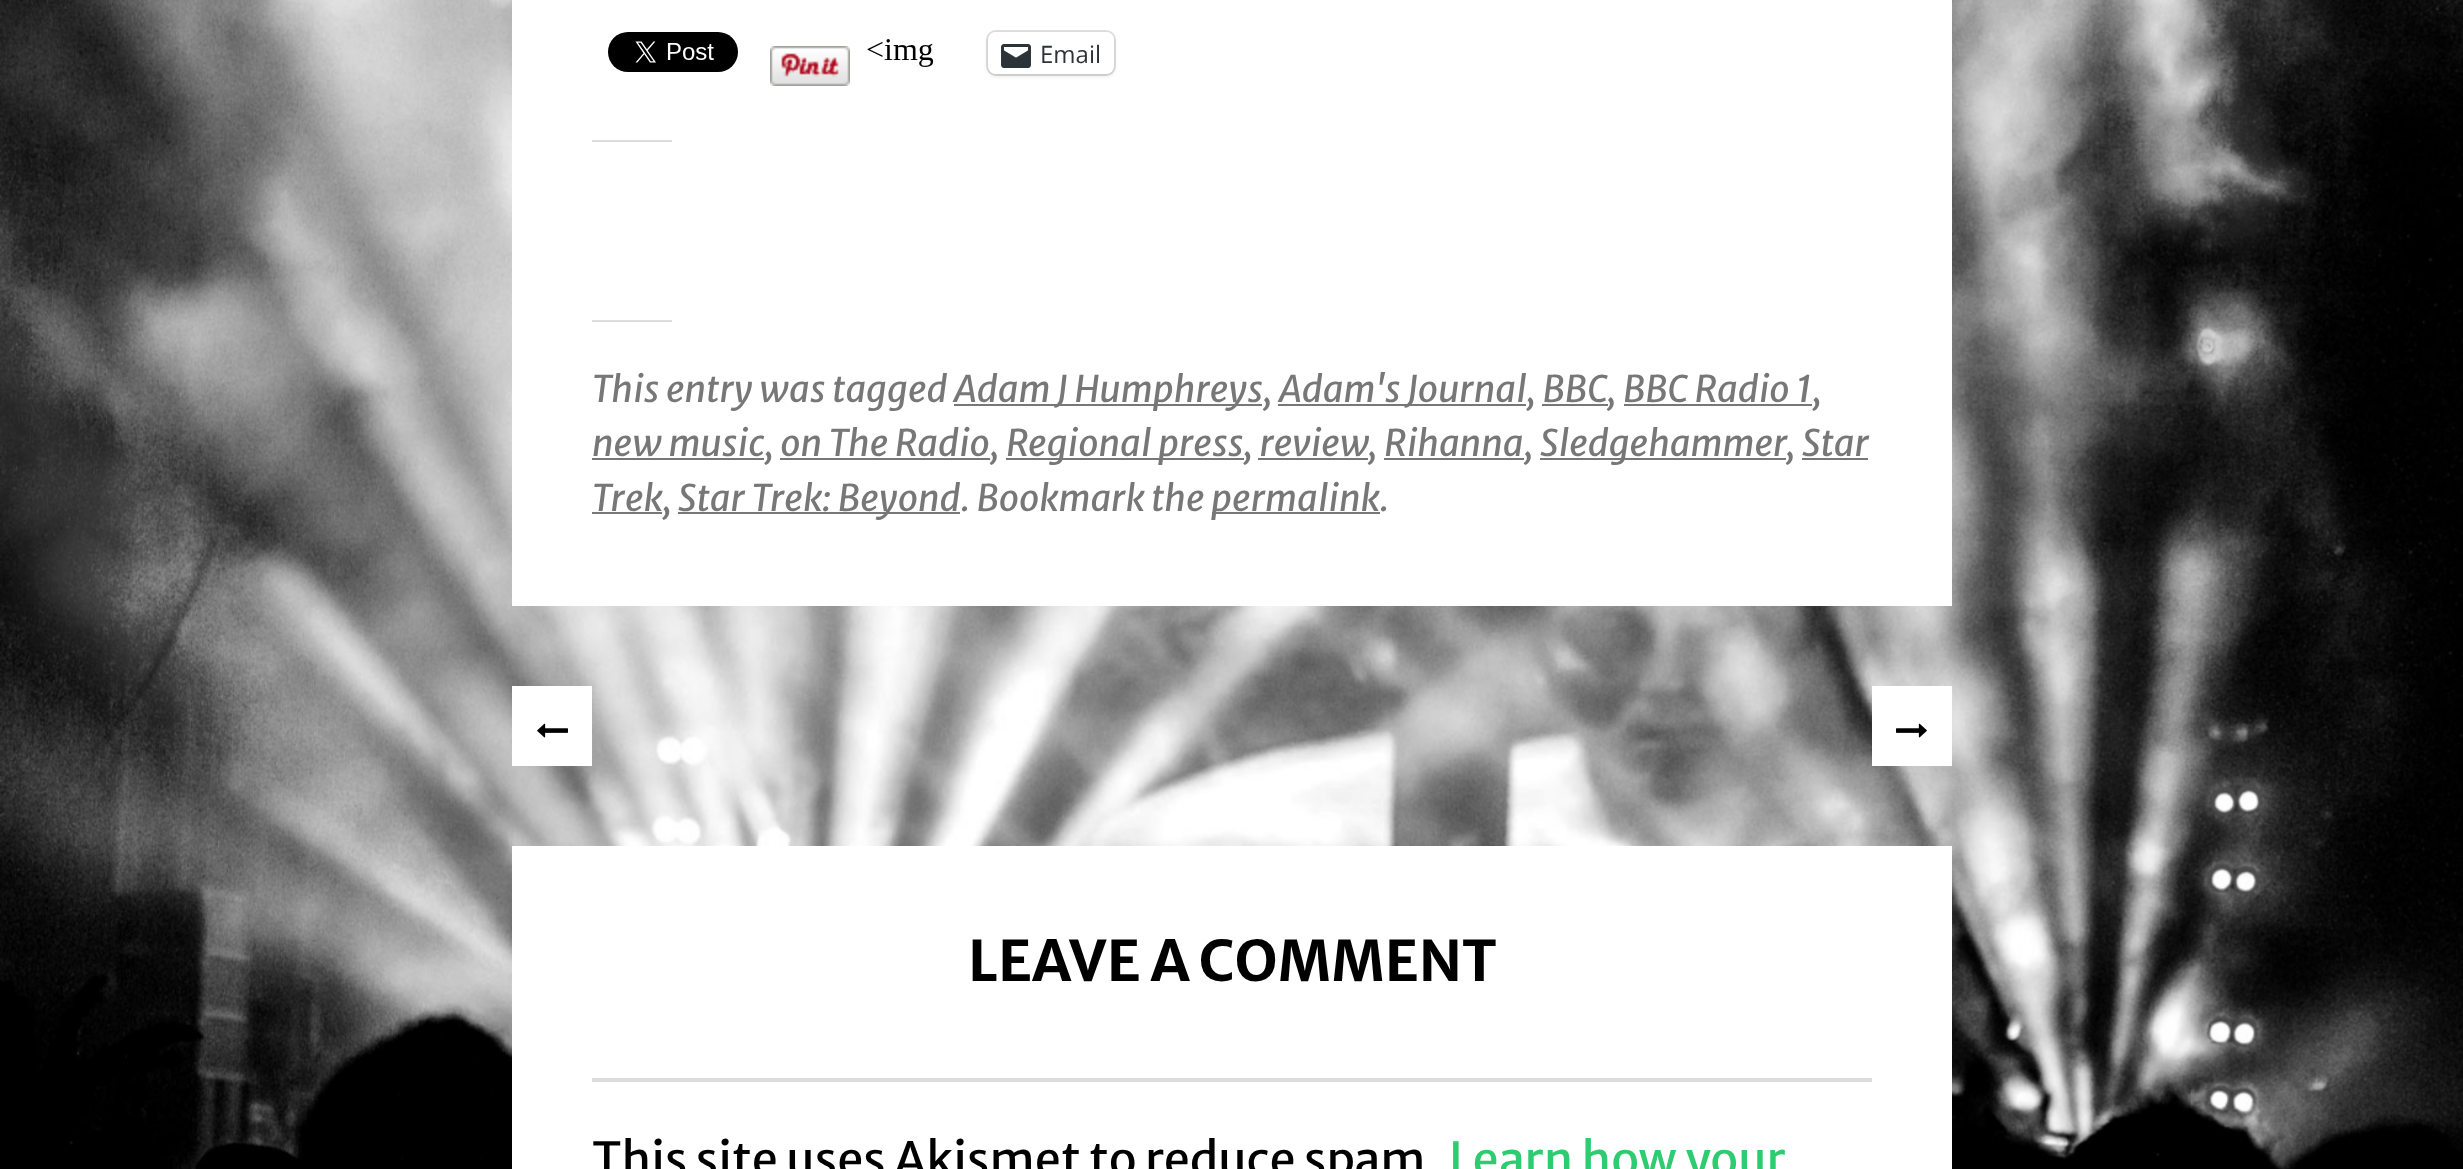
(async () => {
const canvas = document.querySelector("canvas")
canvas.width = 2463
canvas.height = 1169
const c = canvas.getContext("2d")
c.miterLimit = 4
c.fontKerning = "normal"
function T(s,x,y){c.fillText(s,x,y)}
function R(x,y,w,h){c.fillRect(x,y,w,h)}
function Q(x,y,w,h,r){c.beginPath();c.roundRect(x,y,w,h,r);c.fill()}
async function I(src,x,y,w,h){const img=new Image();img.src=src;await img.decode();c.drawImage(img,x,y,w,h)}
c.fillStyle="#fff"
R(0,0,2463,1169)
await I("1.png",0,0,2463,1169)
R(512,0,1440,606)
await I("2.png",608,32,130,40)
await I("3.png",770,46,80,40)
await I("4.png",867,39,67,28)
c.beginPath()
c.roundRect(987,31,128,44,9)
c.strokeStyle="#e0e0e0"
c.lineWidth=2
c.stroke()
c.fillStyle="#0000001f"
c.filter="blur(2px)"
c.beginPath()
c.roundRect(988,34,126,42,8)
c.fill()
c.filter="none"
c.fillStyle="#fff"
Q(988,32,126,42,8)
await I("5.png",1001,44,30,24)
c.font="24px Open Sans"
c.fillStyle="#2c3338"
T("Email",1040,63)
c.fillStyle="#ddd"
R(592,140,80,2)
R(592,320,80,2)
c.font="italic 36.4px Merriweather Sans"
c.fillStyle="#777"
T("This entry was tagged",592,402)
R(954,404,308,2)
T("Adam J Humphreys,",954,402)
R(1278,404,248,2)
T("Adam's Journal, BBC",1279,402)
R(1542,404,66,2)
T(", BBC Radio 1,",1607,402)
R(1624,404,188,2)
R(592,458,172,2)
T("new music, on The Radio",592,456)
R(780,458,210,2)
T(",",990,456)
R(1006,458,238,2)
T("Regional press, review",1006,456)
T(", Rihanna",1368,456)
R(1384,458,140,2)
T(",",1524,456)
R(1540,458,246,2)
T("Sledgehammer",1540,456)
T(", Star",1786,456)
R(1258,458,110,2)
R(592,512,70,2)
T("Trek,",592,511)
R(1802,458,66,2)
R(678,512,282,2)
T("Star Trek: Beyond. Bookmark the",678,511)
R(1212,512,168,2)
T("permalink.",1211,511)
c.fillStyle="#fff"
R(512,686,80,80)
await I("6.png",537,723,31,15)
R(1872,686,80,80)
await I("7.png",1896,723,31,15)
R(512,846,1440,323)
c.font="bold 56px Merriweather Sans"
c.fillStyle="#000"
T("LEAVE A COMMENT",968,981)
c.fillStyle="#dcdcde"
R(592,1078,1280,4)
c.font="46.75px Merriweather Sans"
c.fillStyle="#000"
T("This site uses Akismet to reduce spam",592,1176)
c.fillStyle="#2ecc71"
T("Learn how your",1449,1176)
})()
